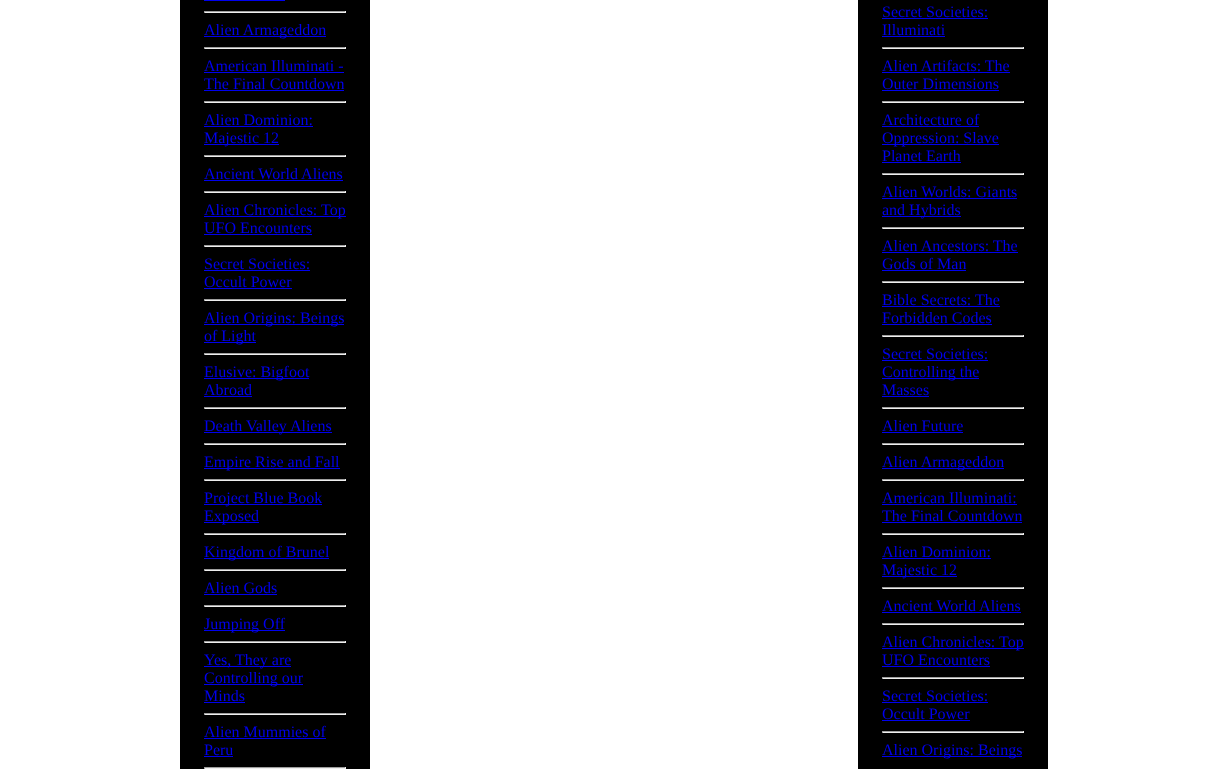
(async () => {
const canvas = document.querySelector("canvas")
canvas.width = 1228
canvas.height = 769
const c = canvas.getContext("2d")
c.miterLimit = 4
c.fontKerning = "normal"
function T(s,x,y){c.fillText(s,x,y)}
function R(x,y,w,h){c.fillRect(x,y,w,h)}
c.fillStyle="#fff"
R(0,0,1228,769)
c.fillStyle="#000"
R(180,0,190,769)
c.fillStyle="#00e"
R(204,0,81,1)
c.fillStyle="#9f9f9f"
R(204,11,142,1)
c.fillStyle="#eee"
R(345,11,1,2)
R(204,12,142,1)
c.fillStyle="#9f9f9f"
R(204,11,1,2)
c.fillStyle="#00e"
R(204,36,122,1)
c.font="16px Liberation Serif"
T("Alien Armageddon",204,35)
c.fillStyle="#9f9f9f"
R(204,47,142,1)
c.fillStyle="#eee"
R(345,47,1,2)
R(204,48,142,1)
c.fillStyle="#9f9f9f"
R(204,47,1,2)
c.fillStyle="#00e"
T("American Illuminati -",204,71)
R(204,72,140,1)
T("The Final Countdown",204,89)
R(204,90,140,1)
c.fillStyle="#9f9f9f"
R(204,101,142,1)
c.fillStyle="#eee"
R(345,101,1,2)
R(204,102,142,1)
c.fillStyle="#9f9f9f"
R(204,101,1,2)
c.fillStyle="#00e"
T("Alien Dominion:",204,125)
R(204,126,109,1)
R(204,144,75,1)
T("Majestic 12",204,143)
c.fillStyle="#9f9f9f"
R(204,155,142,1)
c.fillStyle="#eee"
R(345,155,1,2)
R(204,156,142,1)
c.fillStyle="#9f9f9f"
R(204,155,1,2)
c.fillStyle="#00e"
T("Ancient World Aliens",204,179)
R(204,180,139,1)
c.fillStyle="#9f9f9f"
R(204,191,142,1)
c.fillStyle="#eee"
R(345,191,1,2)
R(204,192,142,1)
c.fillStyle="#9f9f9f"
R(204,191,1,2)
c.fillStyle="#00e"
R(204,216,142,1)
T("Alien Chronicles: Top",204,215)
T("UFO Encounters",204,233)
R(204,234,108,1)
c.fillStyle="#9f9f9f"
R(204,245,142,1)
c.fillStyle="#eee"
R(345,245,1,2)
R(204,246,142,1)
c.fillStyle="#9f9f9f"
R(204,245,1,2)
c.fillStyle="#00e"
T("Secret Societies:",204,269)
R(204,270,106,1)
T("Occult Power",204,287)
R(204,288,88,1)
c.fillStyle="#9f9f9f"
R(204,299,142,1)
c.fillStyle="#eee"
R(345,299,1,2)
R(204,300,142,1)
c.fillStyle="#9f9f9f"
R(204,299,1,2)
c.fillStyle="#00e"
R(204,324,140,1)
T("Alien Origins: Beings",204,323)
R(204,342,52,1)
T("of Light",204,341)
c.fillStyle="#9f9f9f"
R(204,353,142,1)
c.fillStyle="#eee"
R(345,353,1,2)
R(204,354,142,1)
c.fillStyle="#9f9f9f"
R(204,353,1,2)
c.fillStyle="#00e"
R(204,378,105,1)
T("Elusive: Bigfoot",204,377)
T("Abroad",204,395)
R(204,396,48,1)
c.fillStyle="#9f9f9f"
R(204,407,142,1)
c.fillStyle="#eee"
R(345,407,1,2)
R(204,408,142,1)
c.fillStyle="#9f9f9f"
R(204,407,1,2)
c.fillStyle="#00e"
R(204,432,128,1)
T("Death Valley Aliens",204,431)
c.fillStyle="#9f9f9f"
R(204,443,142,1)
c.fillStyle="#eee"
R(345,443,1,2)
R(204,444,142,1)
c.fillStyle="#9f9f9f"
R(204,443,1,2)
c.fillStyle="#00e"
R(204,468,136,1)
T("Empire Rise and Fall",204,467)
c.fillStyle="#9f9f9f"
R(204,479,142,1)
c.fillStyle="#eee"
R(345,479,1,2)
R(204,480,142,1)
c.fillStyle="#9f9f9f"
R(204,479,1,2)
c.fillStyle="#00e"
R(204,504,118,1)
T("Project Blue Book",204,503)
R(204,522,55,1)
T("Exposed",204,521)
c.fillStyle="#9f9f9f"
R(204,533,142,1)
c.fillStyle="#eee"
R(345,533,1,2)
R(204,534,142,1)
c.fillStyle="#9f9f9f"
R(204,533,1,2)
c.fillStyle="#00e"
R(204,558,125,1)
T("Kingdom of Brunel",204,557)
c.fillStyle="#9f9f9f"
R(204,569,142,1)
c.fillStyle="#eee"
R(345,569,1,2)
R(204,570,142,1)
c.fillStyle="#9f9f9f"
R(204,569,1,2)
c.fillStyle="#00e"
T("Alien Gods",204,593)
R(204,594,73,1)
c.fillStyle="#9f9f9f"
R(204,605,142,1)
c.fillStyle="#eee"
R(345,605,1,2)
R(204,606,142,1)
c.fillStyle="#9f9f9f"
R(204,605,1,2)
c.fillStyle="#00e"
R(204,630,81,1)
T("Jumping Off",204,629)
c.fillStyle="#9f9f9f"
R(204,641,142,1)
c.fillStyle="#eee"
R(345,641,1,2)
R(204,642,142,1)
c.fillStyle="#9f9f9f"
R(204,641,1,2)
c.fillStyle="#00e"
R(204,666,87,1)
T("Yes, They are",204,665)
R(204,684,99,1)
T("Controlling our",204,683)
T("Minds",204,701)
R(204,702,41,1)
c.fillStyle="#9f9f9f"
R(204,713,142,1)
c.fillStyle="#eee"
R(345,713,1,2)
R(204,714,142,1)
c.fillStyle="#9f9f9f"
R(204,713,1,2)
c.fillStyle="#00e"
T("Alien Mummies of",204,737)
R(204,738,122,1)
T("Peru",204,755)
R(204,756,29,1)
c.fillStyle="#9f9f9f"
R(204,767,142,1)
c.fillStyle="#eee"
R(345,767,1,2)
R(204,768,142,1)
c.fillStyle="#9f9f9f"
R(204,767,1,2)
c.fillStyle="#000"
R(858,0,190,769)
c.fillStyle="#00e"
T("Secret Societies:",882,17)
R(882,18,106,1)
T("Illuminati",882,35)
R(882,36,63,1)
c.fillStyle="#9f9f9f"
R(882,47,142,1)
c.fillStyle="#eee"
R(1023,47,1,2)
R(882,48,142,1)
c.fillStyle="#9f9f9f"
R(882,47,1,2)
c.fillStyle="#00e"
T("Alien Artifacts: The",882,71)
R(882,72,128,1)
T("Outer Dimensions",882,89)
R(882,90,117,1)
c.fillStyle="#9f9f9f"
R(882,101,142,1)
c.fillStyle="#eee"
R(1023,101,1,2)
R(882,102,142,1)
c.fillStyle="#9f9f9f"
R(882,101,1,2)
c.fillStyle="#00e"
T("Architecture of",882,125)
R(882,126,97,1)
R(882,144,117,1)
T("Oppression: Slave",882,143)
T("Planet Earth",882,161)
R(882,162,79,1)
c.fillStyle="#9f9f9f"
R(882,173,142,1)
c.fillStyle="#eee"
R(1023,173,1,2)
R(882,174,142,1)
c.fillStyle="#9f9f9f"
R(882,173,1,2)
c.fillStyle="#00e"
T("Alien Worlds: Giants",882,197)
R(882,198,135,1)
R(882,216,79,1)
T("and Hybrids",882,215)
c.fillStyle="#9f9f9f"
R(882,227,142,1)
c.fillStyle="#eee"
R(1023,227,1,2)
R(882,228,142,1)
c.fillStyle="#9f9f9f"
R(882,227,1,2)
c.fillStyle="#00e"
T("Alien Ancestors: The",882,251)
R(882,252,136,1)
T("Gods of Man",882,269)
R(882,270,84,1)
c.fillStyle="#9f9f9f"
R(882,281,142,1)
c.fillStyle="#eee"
R(1023,281,1,2)
R(882,282,142,1)
c.fillStyle="#9f9f9f"
R(882,281,1,2)
c.fillStyle="#00e"
T("Bible Secrets: The",882,305)
R(882,306,118,1)
T("Forbidden Codes",882,323)
R(882,324,110,1)
c.fillStyle="#9f9f9f"
R(882,335,142,1)
c.fillStyle="#eee"
R(1023,335,1,2)
R(882,336,142,1)
c.fillStyle="#9f9f9f"
R(882,335,1,2)
c.fillStyle="#00e"
T("Secret Societies:",882,359)
R(882,360,106,1)
R(882,378,97,1)
T("Controlling the",882,377)
T("Masses",882,395)
R(882,396,47,1)
c.fillStyle="#9f9f9f"
R(882,407,142,1)
c.fillStyle="#eee"
R(1023,407,1,2)
R(882,408,142,1)
c.fillStyle="#9f9f9f"
R(882,407,1,2)
c.fillStyle="#00e"
T("Alien Future",882,431)
R(882,432,81,1)
c.fillStyle="#9f9f9f"
R(882,443,142,1)
c.fillStyle="#eee"
R(1023,443,1,2)
R(882,444,142,1)
c.fillStyle="#9f9f9f"
R(882,443,1,2)
c.fillStyle="#00e"
R(882,468,122,1)
T("Alien Armageddon",882,467)
c.fillStyle="#9f9f9f"
R(882,479,142,1)
c.fillStyle="#eee"
R(1023,479,1,2)
R(882,480,142,1)
c.fillStyle="#9f9f9f"
R(882,479,1,2)
c.fillStyle="#00e"
T("American Illuminati:",882,503)
R(882,504,135,1)
T("The Final Countdown",882,521)
R(882,522,140,1)
c.fillStyle="#9f9f9f"
R(882,533,142,1)
c.fillStyle="#eee"
R(1023,533,1,2)
R(882,534,142,1)
c.fillStyle="#9f9f9f"
R(882,533,1,2)
c.fillStyle="#00e"
T("Alien Dominion:",882,557)
R(882,558,109,1)
R(882,576,75,1)
T("Majestic 12",882,575)
c.fillStyle="#9f9f9f"
R(882,587,142,1)
c.fillStyle="#eee"
R(1023,587,1,2)
R(882,588,142,1)
c.fillStyle="#9f9f9f"
R(882,587,1,2)
c.fillStyle="#00e"
T("Ancient World Aliens",882,611)
R(882,612,139,1)
c.fillStyle="#9f9f9f"
R(882,623,142,1)
c.fillStyle="#eee"
R(1023,623,1,2)
R(882,624,142,1)
c.fillStyle="#9f9f9f"
R(882,623,1,2)
c.fillStyle="#00e"
R(882,648,142,1)
T("Alien Chronicles: Top",882,647)
T("UFO Encounters",882,665)
R(882,666,108,1)
c.fillStyle="#9f9f9f"
R(882,677,142,1)
c.fillStyle="#eee"
R(1023,677,1,2)
R(882,678,142,1)
c.fillStyle="#9f9f9f"
R(882,677,1,2)
c.fillStyle="#00e"
T("Secret Societies:",882,701)
R(882,702,106,1)
T("Occult Power",882,719)
R(882,720,88,1)
c.fillStyle="#9f9f9f"
R(882,731,142,1)
c.fillStyle="#eee"
R(1023,731,1,2)
R(882,732,142,1)
c.fillStyle="#9f9f9f"
R(882,731,1,2)
c.fillStyle="#00e"
R(882,756,140,1)
T("Alien Origins: Beings",882,755)
})()
